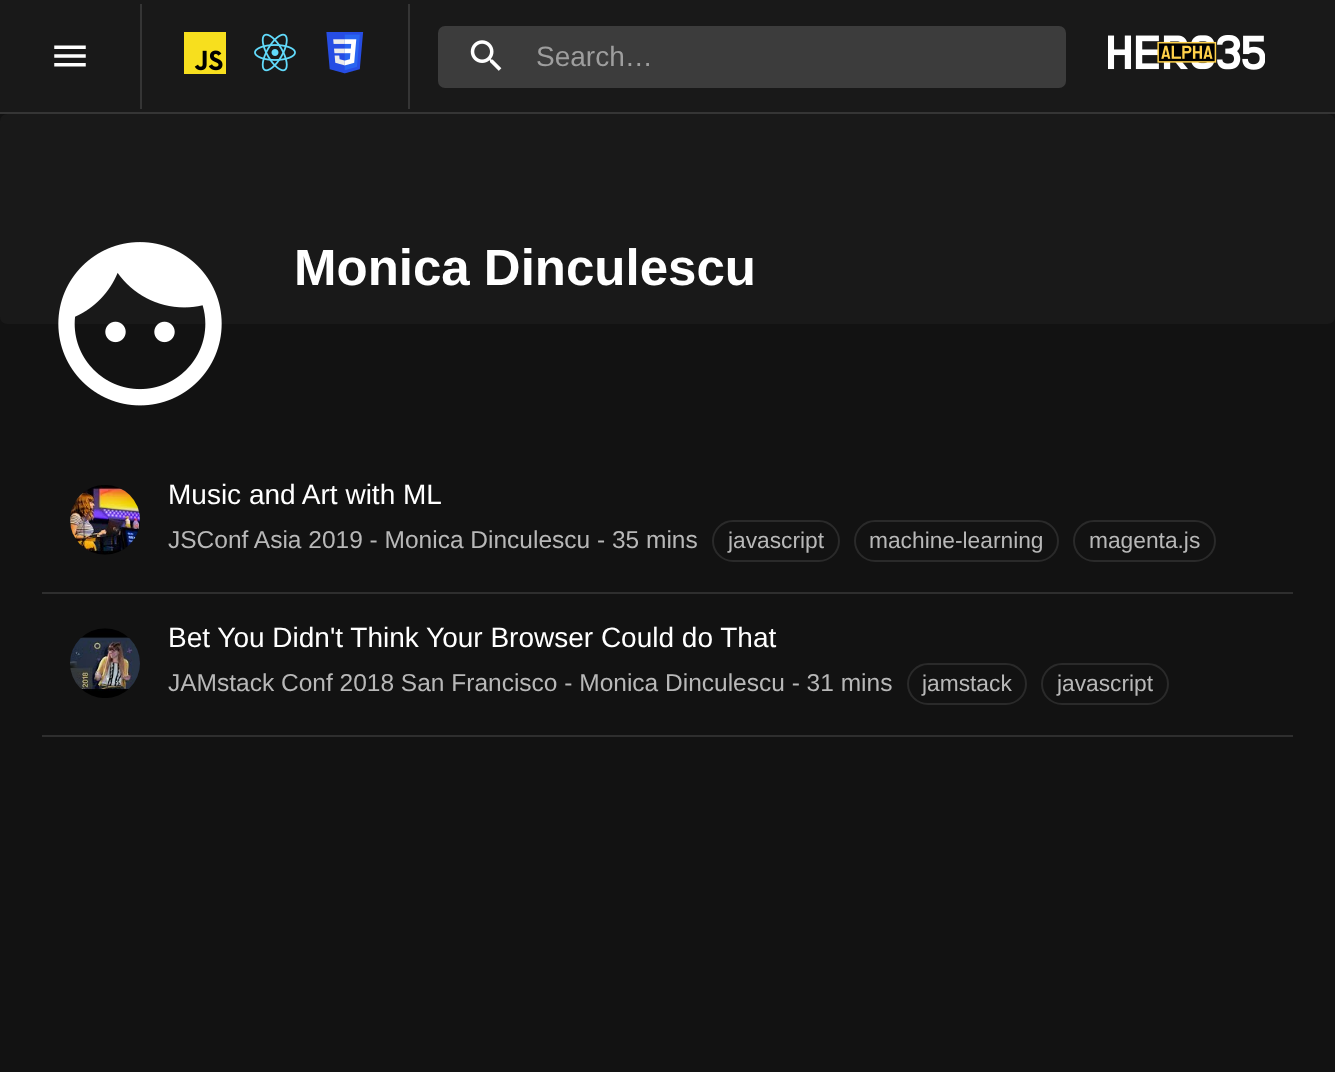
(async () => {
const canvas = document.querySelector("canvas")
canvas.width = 1335
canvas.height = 1072
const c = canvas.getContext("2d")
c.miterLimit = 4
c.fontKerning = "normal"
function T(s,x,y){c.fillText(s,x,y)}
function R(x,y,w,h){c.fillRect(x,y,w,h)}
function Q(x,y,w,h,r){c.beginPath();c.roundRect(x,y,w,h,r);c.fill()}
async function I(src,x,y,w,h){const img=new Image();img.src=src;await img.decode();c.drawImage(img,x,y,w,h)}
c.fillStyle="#121212"
R(0,0,1335,1072)
c.fillStyle="#191919"
R(0,0,1335,112)
c.fillStyle="#353535"
R(0,112,1335,2)
await I("1.png",54,45,32,22)
R(140,4,2,105)
await I("2.png",184,32,42,42)
await I("3.png",254,33,42,39)
await I("4.png",326,32,38,42)
R(408,4,2,105)
c.fillStyle="#3c3c3c"
Q(438,26,628,62,7)
await I("5.png",470,40,32,31)
c.font="28px Liberation Sans"
c.fillStyle="#9e9e9e"
T("Search…",536,66)
await I("6.png",1108,35,157,35)
c.fillStyle="#191919"
Q(0,114,1335,210,7)
await I("7.png",58,242,164,164)
c.font="bold 51px Liberation Sans"
c.fillStyle="#fff"
T("Monica Dinculescu",294,285)
c.fillStyle="#2e2e2e"
R(42,592,1251,2)
await I("8.png",70,485,70,70)
c.font="28px Liberation Sans"
c.fillStyle="#fff"
T("Music and Art with ML",168,504)
c.font="24.5px Liberation Sans"
c.fillStyle="#b8b8b8"
T("JSConf Asia 2019 - Monica Dinculescu - 35 mins",168,548)
c.beginPath()
c.roundRect(713,521,126,40,20)
c.strokeStyle="#2a2a2a"
c.lineWidth=2
c.stroke()
c.font="22.75px Liberation Sans"
T("javascript",728,548)
c.beginPath()
c.roundRect(855,521,203,40,20)
c.stroke()
T("machine-learning",869,548)
c.beginPath()
c.roundRect(1074,521,141,40,20)
c.stroke()
T("magenta.js",1089,548)
c.fillStyle="#2e2e2e"
R(42,735,1251,2)
await I("9.png",70,628,70,70)
c.font="28px Liberation Sans"
c.fillStyle="#fff"
T("Bet You Didn't Think Your Browser Could do That",168,647)
c.font="24.5px Liberation Sans"
c.fillStyle="#b8b8b8"
T("JAMstack Conf 2018 San Francisco - Monica Dinculescu - 31 mins",168,691)
c.beginPath()
c.roundRect(908,664,118,40,20)
c.stroke()
c.font="22.75px Liberation Sans"
T("jamstack",922,691)
c.beginPath()
c.roundRect(1042,664,126,40,20)
c.stroke()
T("javascript",1057,691)
})()
